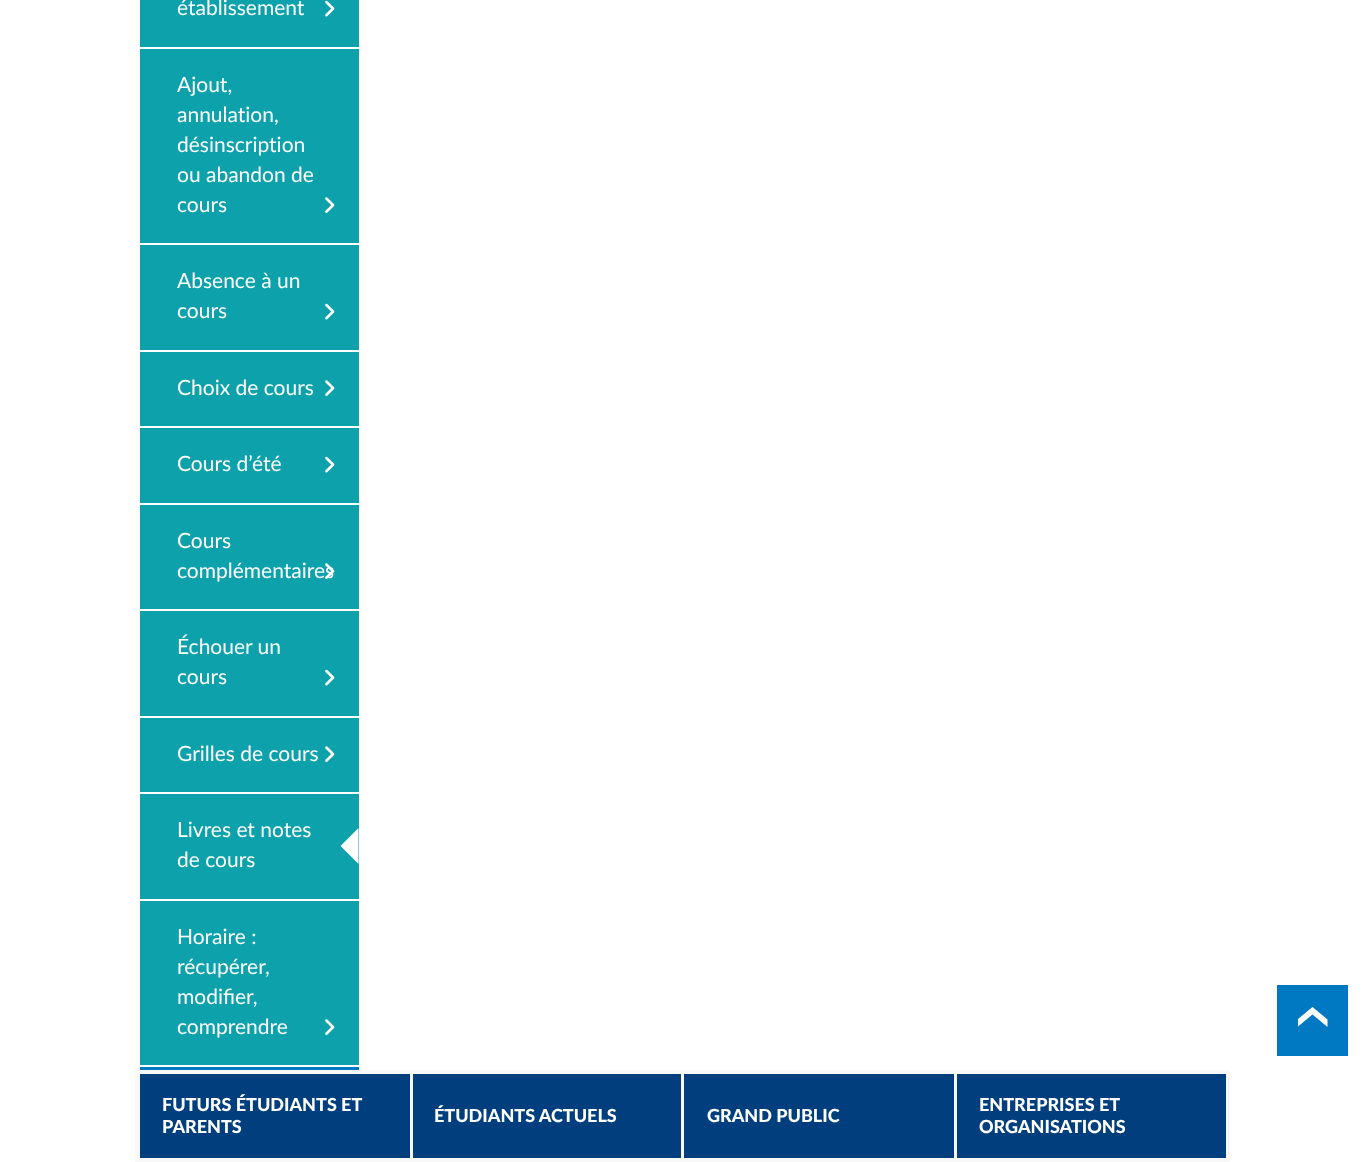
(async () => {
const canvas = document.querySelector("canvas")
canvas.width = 1364
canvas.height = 1162
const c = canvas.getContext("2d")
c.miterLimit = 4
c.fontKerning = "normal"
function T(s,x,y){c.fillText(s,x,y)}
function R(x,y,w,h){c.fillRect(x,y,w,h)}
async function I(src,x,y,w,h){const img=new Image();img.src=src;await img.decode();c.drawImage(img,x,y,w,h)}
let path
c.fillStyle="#fff"
R(0,0,1364,1162)
c.fillStyle="#0da1ac"
R(140,0,219,47)
c.font="21px Lato"
c.fillStyle="#fff"
T("établissement",177,15)
await I("1.png",325,0,10,17)
c.fillStyle="#0da1ac"
R(140,49,219,194)
c.fillStyle="#fff"
T("Ajout,",177,92)
T("annulation,",177,122)
T("désinscription",177,152)
T("ou abandon de",177,182)
T("cours",177,212)
await I("2.png",325,197,10,16)
c.fillStyle="#0da1ac"
R(140,245,219,105)
c.fillStyle="#fff"
T("Absence à un",177,288)
T("cours",177,318)
await I("1.png",325,303,10,17)
c.fillStyle="#0da1ac"
R(140,352,219,74)
c.fillStyle="#fff"
T("Choix de cours",177,395)
await I("2.png",325,380,10,16)
c.fillStyle="#0da1ac"
R(140,428,219,75)
c.fillStyle="#fff"
T("Cours d’été",177,471)
await I("1.png",325,456,10,17)
c.fillStyle="#0da1ac"
R(140,505,219,104)
c.fillStyle="#fff"
T("Cours",177,548)
T("complémentaires",177,578)
await I("3.png",325,563,10,16)
c.fillStyle="#0da1ac"
R(140,611,219,105)
c.fillStyle="#fff"
T("Échouer un",177,654)
T("cours",177,684)
await I("1.png",325,669,10,17)
c.fillStyle="#0da1ac"
R(140,718,219,74)
c.fillStyle="#fff"
T("Grilles de cours",177,761)
await I("2.png",325,746,10,16)
c.fillStyle="#0da1ac"
R(140,794,219,105)
c.fillStyle="#fff"
T("Livres et notes",177,837)
path = new Path2D("M358.5 828v36l-18-18z")
c.fill(path)
T("de cours",177,867)
c.fillStyle="#0da1ac"
R(140,901,219,164)
c.fillStyle="#fff"
T("Horaire :",177,944)
T("récupérer,",177,974)
T("modifier,",177,1004)
T("comprendre",177,1034)
await I("2.png",325,1019,10,16)
c.fillStyle="#0079c2"
R(140,1067,219,3)
R(1277,985,71,71)
c.save()
c.beginPath()
c.rect(1298,1002,30,30)
c.clip()
c.fillStyle="#fff"
path = new Path2D("M1327.5 1027v-7.5l-15-12.5l-15 12.5v7.5l15-12.5z")
c.fill(path)
c.restore()
c.strokeStyle="#f8f8f8"
c.lineWidth=5
c.strokeRect(137.5,1072.5,1090,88)
c.fillStyle="#f8f8f8"
R(410,1074,3,84)
c.fillStyle="#003e7e"
R(140,1074,270,84)
c.font="900 18px Lato"
c.fillStyle="#fff"
T("FUTURS ÉTUDIANTS ET",162,1111)
T("PARENTS",162,1133)
c.fillStyle="#f8f8f8"
R(681,1074,3,84)
c.fillStyle="#003e7e"
R(413,1074,268,84)
c.fillStyle="#fff"
T("ÉTUDIANTS ACTUELS",434,1122)
c.fillStyle="#f8f8f8"
R(954,1074,3,84)
c.fillStyle="#003e7e"
R(684,1074,270,84)
c.fillStyle="#fff"
T("GRAND PUBLIC",707,1122)
c.fillStyle="#003e7e"
R(957,1074,269,84)
c.fillStyle="#fff"
T("ENTREPRISES ET",979,1111)
T("ORGANISATIONS",979,1133)
})()
